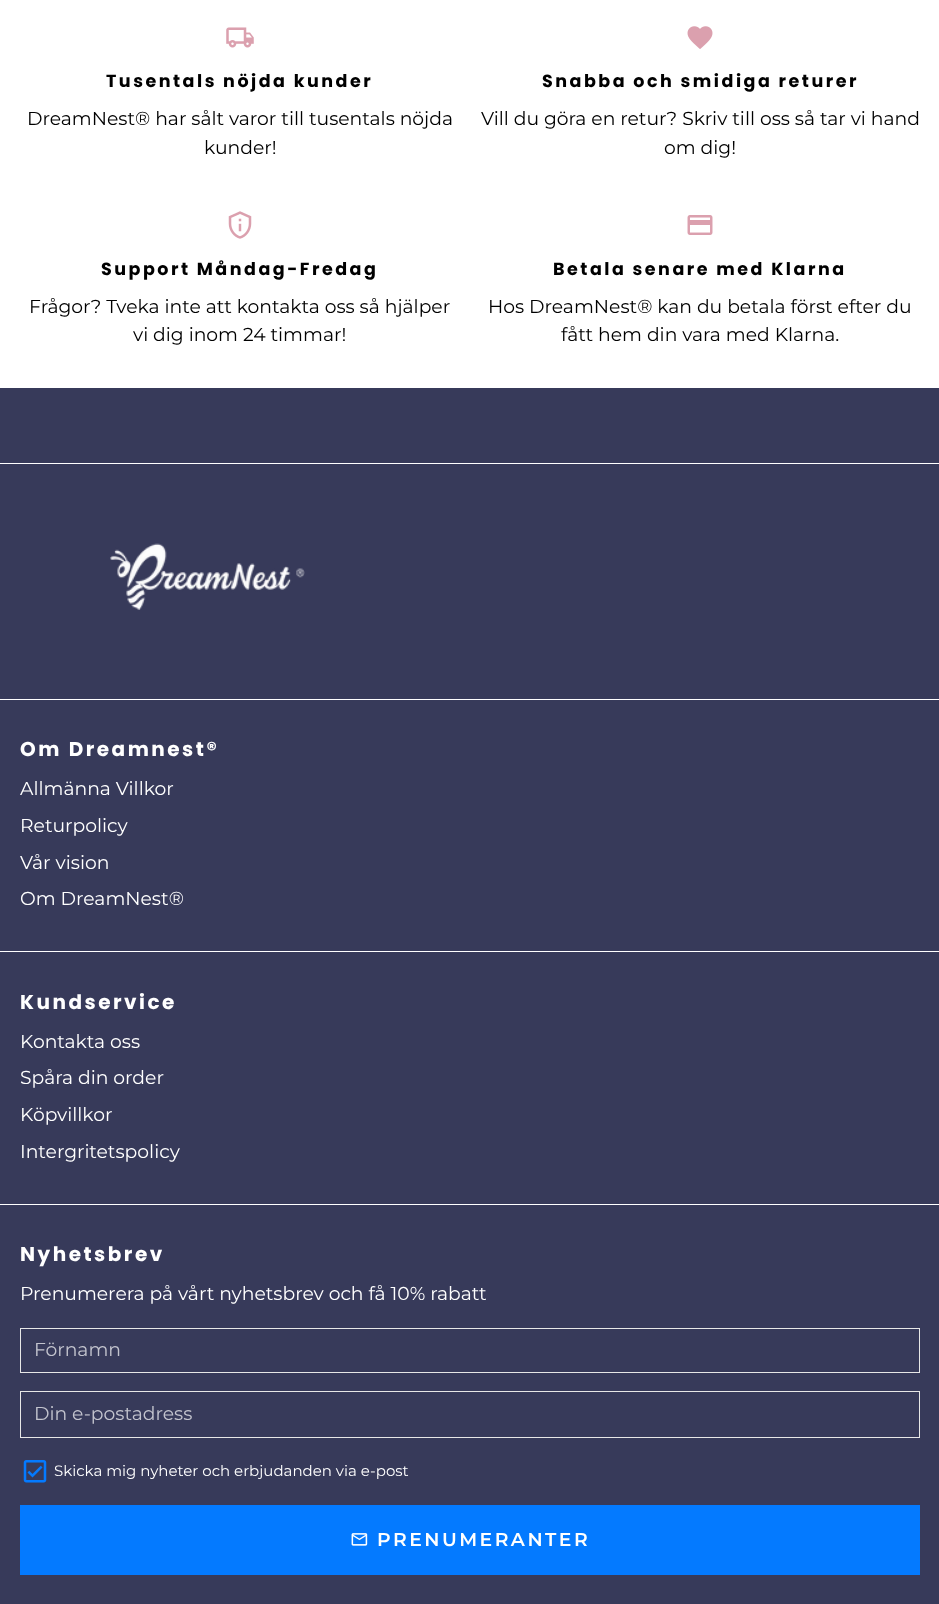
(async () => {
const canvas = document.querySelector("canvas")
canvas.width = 939
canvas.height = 1604
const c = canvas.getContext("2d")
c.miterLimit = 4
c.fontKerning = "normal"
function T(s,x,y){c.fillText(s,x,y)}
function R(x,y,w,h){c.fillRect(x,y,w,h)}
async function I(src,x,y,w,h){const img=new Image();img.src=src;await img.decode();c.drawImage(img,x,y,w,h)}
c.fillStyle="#fff"
R(0,0,939,1604)
await I("1.png",226,27,28,21)
c.letterSpacing="2.5px"
c.font="bold 17.5px Poppins"
c.fillStyle="#000"
T("Tusentals nöjda kunder",106,87)
c.letterSpacing="0px"
c.font="18.75px Montserrat"
T("DreamNest® har sålt varor till tusentals nöjda",27,125)
T("kunder!",204,154)
await I("2.png",687,26,26,23)
c.letterSpacing="2.5px"
c.font="bold 17.5px Poppins"
T("Snabba och smidiga returer",542,87)
c.letterSpacing="0px"
c.font="18.75px Montserrat"
T("Vill du göra en retur? Skriv till oss så tar vi hand",481,125)
T("om dig!",664,154)
await I("3.png",228,211,24,28)
c.letterSpacing="2.5px"
c.font="bold 17.5px Poppins"
T("Support Måndag-Fredag",101,275)
c.letterSpacing="0px"
c.font="18.75px Montserrat"
T("Frågor? Tveka inte att kontakta oss så hjälper",29,313)
T("vi dig inom 24 timmar!",133,341)
await I("4.png",687,215,26,20)
c.letterSpacing="2.5px"
c.font="bold 17.5px Poppins"
T("Betala senare med Klarna",553,275)
c.letterSpacing="0px"
c.font="18.75px Montserrat"
T("Hos DreamNest® kan du betala först efter du",488,313)
T("fått hem din vara med Klarna.",561,341)
c.fillStyle="#373a5a"
R(0,388,939,1216)
c.fillStyle="#fff"
R(0,463,939,1)
await I("5.png",110,543,195,67)
R(0,699,939,1)
c.letterSpacing="2.5px"
c.font="bold 20px Poppins"
T("Om Dreamnest®",20,756)
c.letterSpacing="0px"
c.font="18.75px Montserrat"
T("Allmänna Villkor",20,795)
T("Returpolicy",20,832)
T("Vår vision",20,869)
T("Om DreamNest®",20,905)
R(0,951,939,1)
c.letterSpacing="2.5px"
c.font="bold 20px Poppins"
T("Kundservice",20,1009)
c.letterSpacing="0px"
c.font="18.75px Montserrat"
T("Kontakta oss",20,1048)
T("Spåra din order",20,1084)
T("Köpvillkor",20,1121)
T("Intergritetspolicy",20,1158)
R(0,1204,939,1)
c.letterSpacing="2.5px"
c.font="bold 20px Poppins"
T("Nyhetsbrev",20,1261)
c.letterSpacing="0px"
c.font="18.75px Montserrat"
T("Prenumerera på vårt nyhetsbrev och få 10% rabatt",20,1300)
c.strokeStyle="#e7e7e7"
c.strokeRect(20.5,1328.5,899,44)
c.fillStyle="#c3c4ce"
T("Förnamn",34,1356)
c.strokeRect(20.5,1391.5,899,46)
T("Din e-postadress",34,1420)
await I("6.png",23,1460,24,23)
c.font="15px Montserrat"
c.fillStyle="#fff"
T("Skicka mig nyheter och erbjudanden via e-post",54,1476)
c.fillStyle="#047aff"
R(20,1505,900,70)
await I("7.png",351,1533,17,13)
c.letterSpacing="2.5px"
c.font="600 18.75px Montserrat"
c.fillStyle="#fff"
T("PRENUMERANTER",377,1546)
})()
